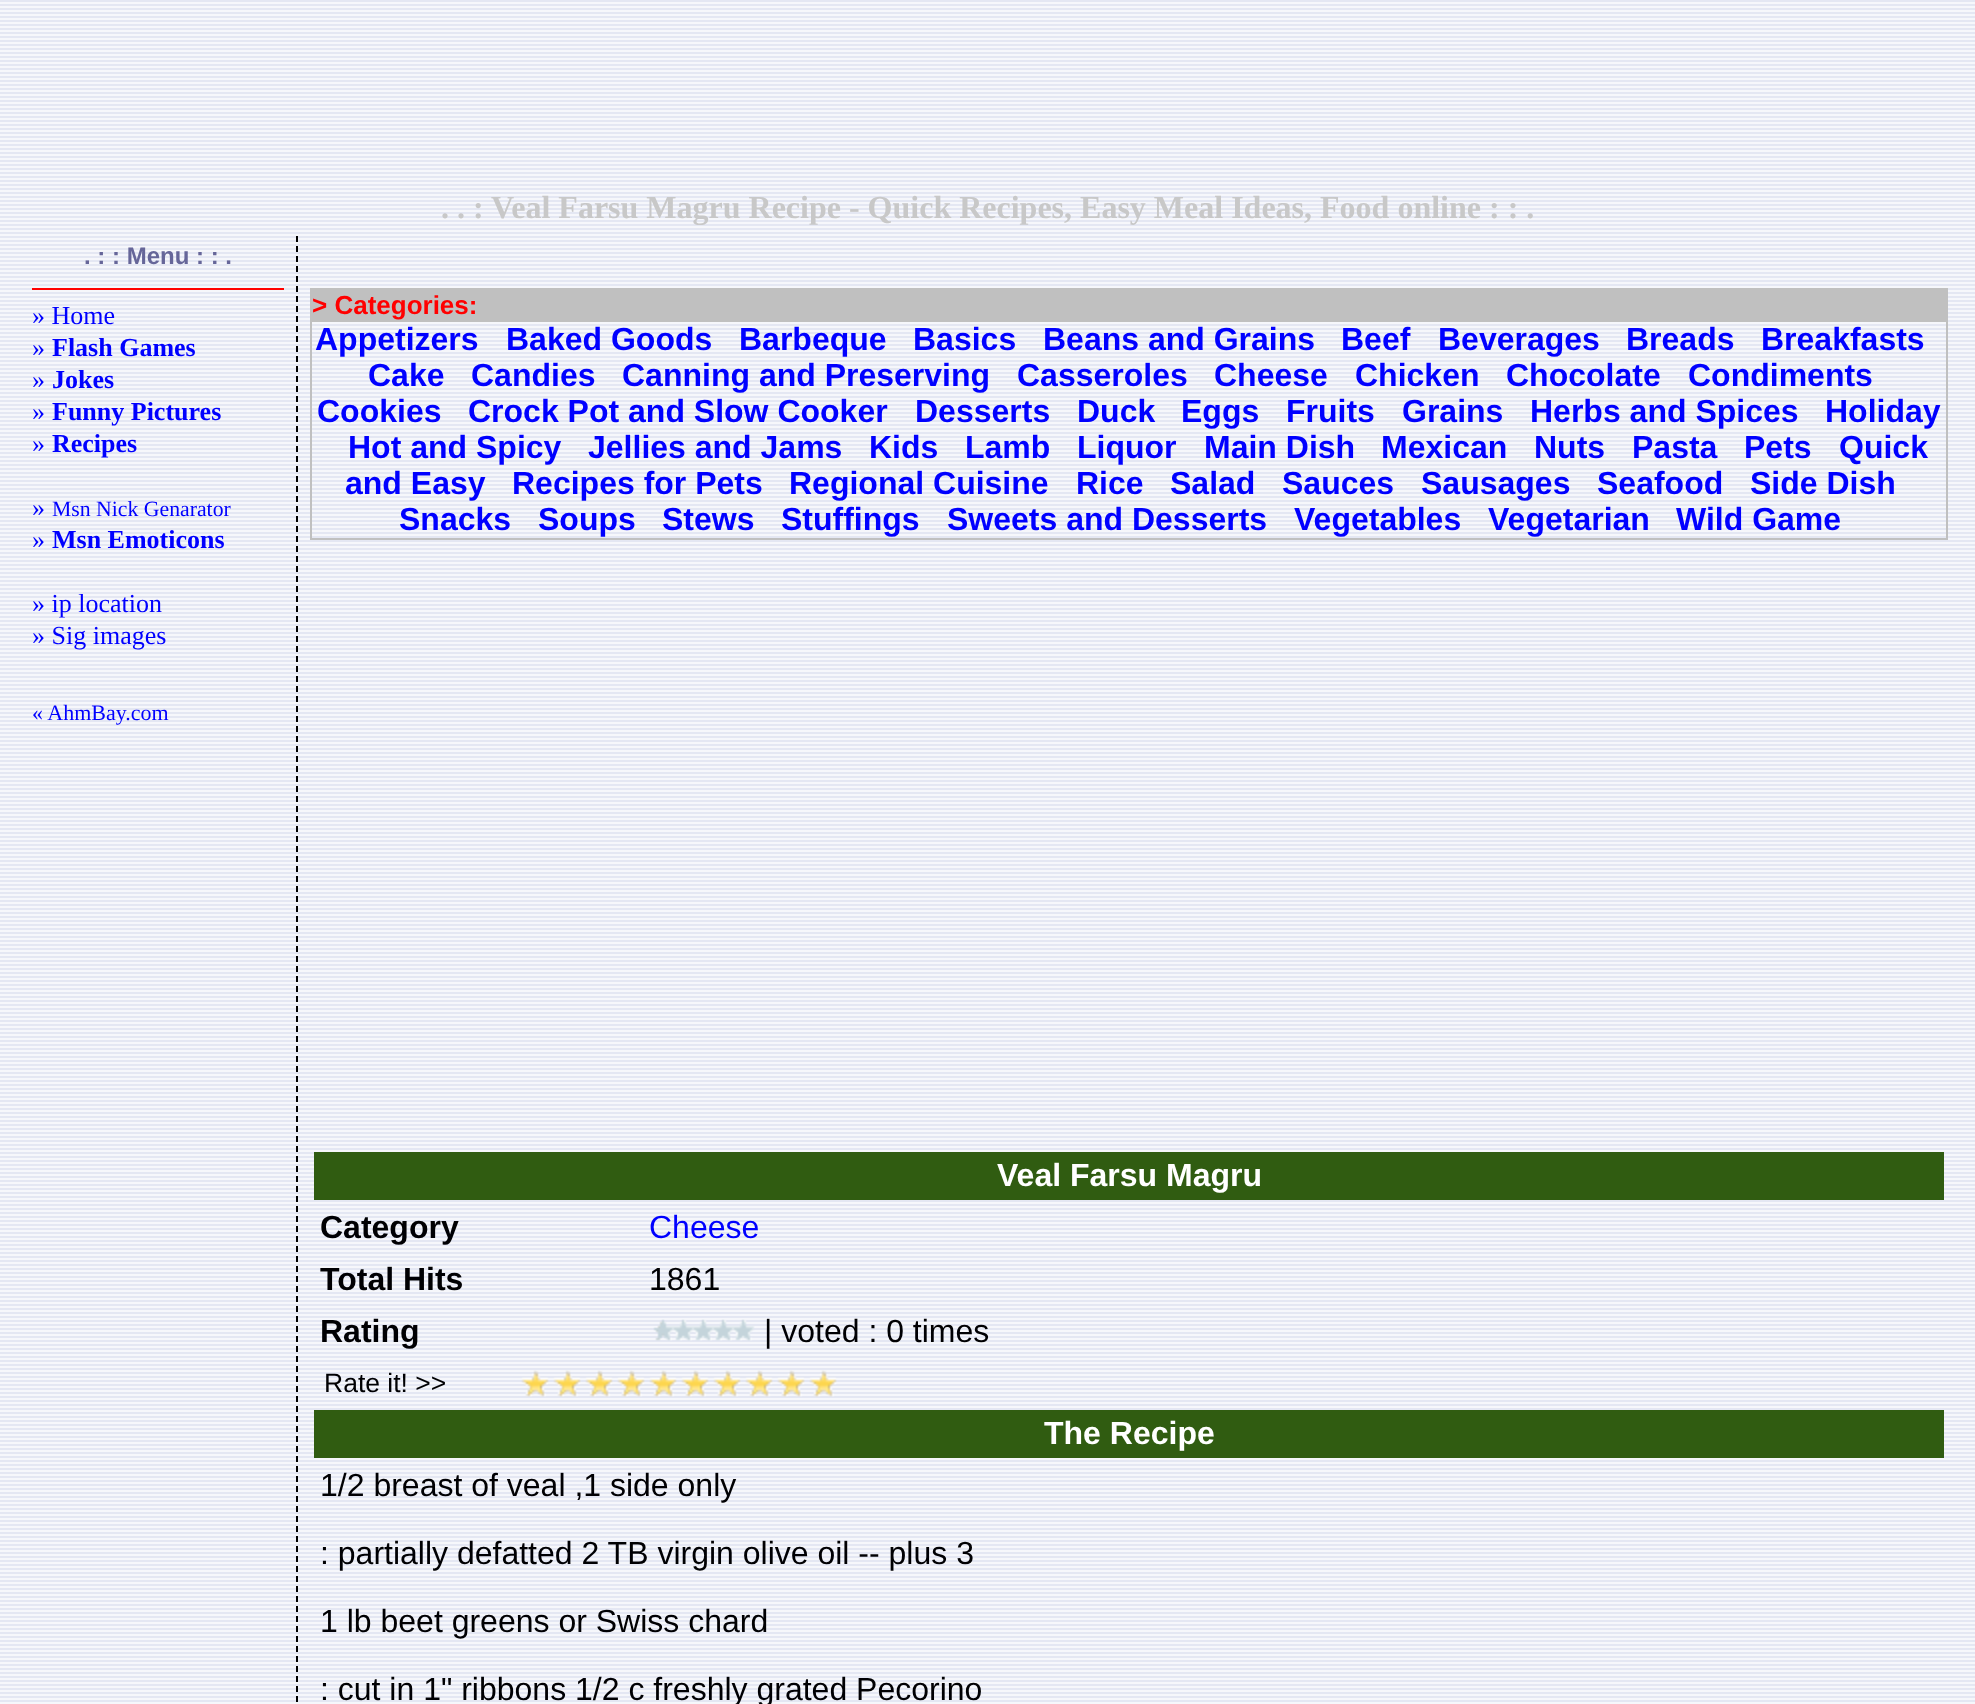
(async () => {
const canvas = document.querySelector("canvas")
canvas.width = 1975
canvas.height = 1704
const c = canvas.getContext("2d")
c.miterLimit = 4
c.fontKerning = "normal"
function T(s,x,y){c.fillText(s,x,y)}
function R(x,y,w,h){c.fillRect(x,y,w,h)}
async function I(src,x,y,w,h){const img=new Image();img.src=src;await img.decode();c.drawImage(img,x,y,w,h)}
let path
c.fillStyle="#fff"
R(0,0,1975,1704)
await I("1.png",0,0,1975,1704)
c.font="bold 32px Liberation Serif"
c.fillStyle="#c8c8c8"
T(". . : Veal Farsu Magru Recipe - Quick Recipes, Easy Meal Ideas, Food online : : .",441,218)
path = new Path2D("M297 236v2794")
c.strokeStyle="#000"
c.lineWidth=2
c.setLineDash([6,4])
c.stroke(path)
c.font="bold 24px Liberation Sans"
c.fillStyle="#669"
T(". : : Menu : : .",84,264)
c.fillStyle="#f00"
R(32,288,252,2)
c.font="26px Liberation Serif"
c.fillStyle="#00f"
T("» Home",32,324)
T("»",32,356)
c.font="bold 26px Liberation Serif"
T("Flash Games",52,356)
c.font="26px Liberation Serif"
T("»",32,388)
c.font="bold 26px Liberation Serif"
T("Jokes",52,388)
c.font="26px Liberation Serif"
T("»",32,420)
c.font="bold 26px Liberation Serif"
T("Funny Pictures",52,420)
c.font="26px Liberation Serif"
T("»",32,452)
c.font="bold 26px Liberation Serif"
T("Recipes",52,452)
c.font="26px Liberation Serif"
T("»",32,516)
c.font="21.75px Liberation Serif"
T("Msn Nick Genarator",52,516)
c.font="26px Liberation Serif"
T("»",32,548)
c.font="bold 26px Liberation Serif"
T("Msn Emoticons",52,548)
c.font="26px Liberation Serif"
T("» ip location",32,612)
T("» Sig images",32,644)
c.font="22px Liberation Serif"
T("« AhmBay.com",32,720)
c.fillStyle="#c0c0c0"
R(310,288,1638,2)
R(1946,288,2,252)
R(310,538,1638,2)
R(310,288,2,252)
R(312,290,1634,32)
c.font="bold 26px Liberation Sans"
c.fillStyle="#f00"
T("> Categories:",312,314)
c.font="bold 32px Liberation Sans"
c.fillStyle="#00f"
T("Appetizers",315,350)
T("Baked Goods",506,350)
T("Barbeque",739,350)
T("Basics",913,350)
T("Beans and Grains",1043,350)
T("Beef",1341,350)
T("Beverages",1438,350)
T("Breads",1626,350)
T("Breakfasts",1761,350)
T("Cake",368,386)
T("Candies",471,386)
T("Canning and Preserving",622,386)
T("Casseroles",1017,386)
T("Cheese",1214,386)
T("Chicken",1355,386)
T("Chocolate",1506,386)
T("Condiments",1688,386)
T("Cookies",317,422)
T("Crock Pot and Slow Cooker",468,422)
T("Desserts",915,422)
T("Duck",1077,422)
T("Eggs",1181,422)
T("Fruits",1286,422)
T("Grains",1402,422)
T("Herbs and Spices",1530,422)
T("Holiday",1825,422)
T("Hot and Spicy",348,458)
T("Jellies and Jams",588,458)
T("Kids",869,458)
T("Lamb",965,458)
T("Liquor",1077,458)
T("Main Dish",1204,458)
T("Mexican",1381,458)
T("Nuts",1534,458)
T("Pasta",1632,458)
T("Pets",1744,458)
T("Quick",1839,458)
T("and Easy",345,494)
T("Recipes for Pets",512,494)
T("Regional Cuisine",789,494)
T("Rice",1076,494)
T("Salad",1170,494)
T("Sauces",1282,494)
T("Sausages",1421,494)
T("Seafood",1597,494)
T("Side Dish",1750,494)
T("Snacks",399,530)
T("Soups",538,530)
T("Stews",662,530)
T("Stuffings",781,530)
T("Sweets and Desserts",947,530)
T("Vegetables",1294,530)
T("Vegetarian",1488,530)
T("Wild Game",1676,530)
c.fillStyle="#305c11"
R(314,1152,1630,48)
c.fillStyle="#fff"
T("Veal Farsu Magru",997,1186)
c.fillStyle="#000003"
T("Category",320,1238)
c.font="32px Liberation Sans"
c.fillStyle="#00f"
T("Cheese",649,1238)
c.font="bold 32px Liberation Sans"
c.fillStyle="#000003"
T("Total Hits",320,1290)
c.font="32px Liberation Sans"
T("1861",649,1290)
c.font="bold 32px Liberation Sans"
T("Rating",320,1342)
await I("2.png",653,1319,102,22)
c.font="32px Liberation Sans"
T("| voted : 0 times",764,1342)
c.font="26.5px Liberation Sans"
T("Rate it! >>",324,1392)
await I("3.png",521,1370,28,27)
await I("3.png",553,1370,28,27)
await I("3.png",585,1370,28,27)
await I("3.png",617,1370,28,27)
await I("3.png",649,1370,28,27)
await I("3.png",681,1370,28,27)
await I("3.png",713,1370,28,27)
await I("3.png",745,1370,28,27)
await I("3.png",777,1370,28,27)
await I("3.png",809,1370,28,27)
c.fillStyle="#305c11"
R(314,1410,1630,48)
c.font="bold 32px Liberation Sans"
c.fillStyle="#fff"
T("The Recipe",1044,1444)
c.font="32px Liberation Sans"
c.fillStyle="#000003"
T("1/2 breast of veal ,1 side only",320,1496)
T(": partially defatted 2 TB virgin olive oil -- plus 3",320,1564)
T("1 lb beet greens or Swiss chard",320,1632)
T(": cut in 1\" ribbons 1/2 c freshly grated Pecorino",320,1700)
})()
